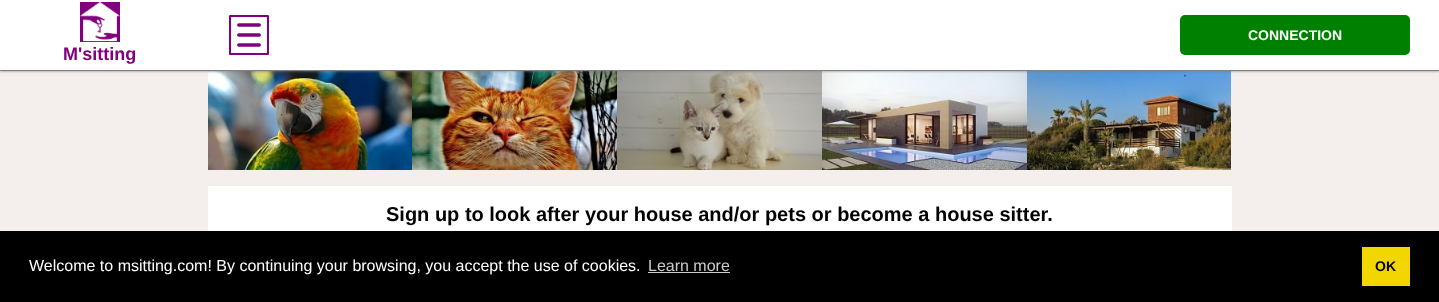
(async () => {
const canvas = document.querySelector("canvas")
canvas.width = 1439
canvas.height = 302
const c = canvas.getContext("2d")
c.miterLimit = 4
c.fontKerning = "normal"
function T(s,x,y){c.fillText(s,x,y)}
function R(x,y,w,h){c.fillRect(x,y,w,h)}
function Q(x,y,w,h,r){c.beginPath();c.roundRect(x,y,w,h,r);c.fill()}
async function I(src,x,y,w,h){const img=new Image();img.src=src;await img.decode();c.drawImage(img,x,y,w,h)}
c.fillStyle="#f4eeed"
R(0,0,1439,302)
await I("3.png",208,71,204,99)
await I("4.png",412,71,205,99)
await I("5.png",617,71,205,99)
await I("6.png",822,71,205,99)
await I("7.png",1027,71,204,99)
c.fillStyle="#808080"
c.filter="blur(1.5px)"
c.beginPath()
c.rect(0,0,1439,71)
c.fill()
c.filter="none"
c.fillStyle="#fff"
R(0,0,1439,70)
c.fillStyle="#808080"
R(0,70,1439,1)
await I("1.png",229,15,40,40)
c.fillStyle="#008000"
Q(1180,15,230,40,5)
c.font="bold 14px Liberation Sans"
c.fillStyle="#fff"
T("CONNECTION",1248,40)
await I("2.png",80,2,40,40)
c.font="bold 18px Liberation Sans"
c.fillStyle="#800080"
T("M'sitting",63,60)
c.fillStyle="#fff"
R(208,186,1024,45)
c.font="bold 20px Liberation Sans"
c.fillStyle="#000"
T("Sign up to look after your house and/or pets or become a house sitter.",386,221)
R(0,231,1439,71)
c.font="16px Liberation Sans"
c.fillStyle="#fff"
T("Welcome to msitting.com! By continuing your browsing, you accept the use of cookies.",29,271)
c.fillStyle="#ccc"
T("Learn more",648,271)
R(648,272,82,1)
c.fillStyle="#f1d600"
R(1362,247,48,39)
c.font="bold 14px Liberation Sans"
c.fillStyle="#000"
T("OK",1375,271)
})()
